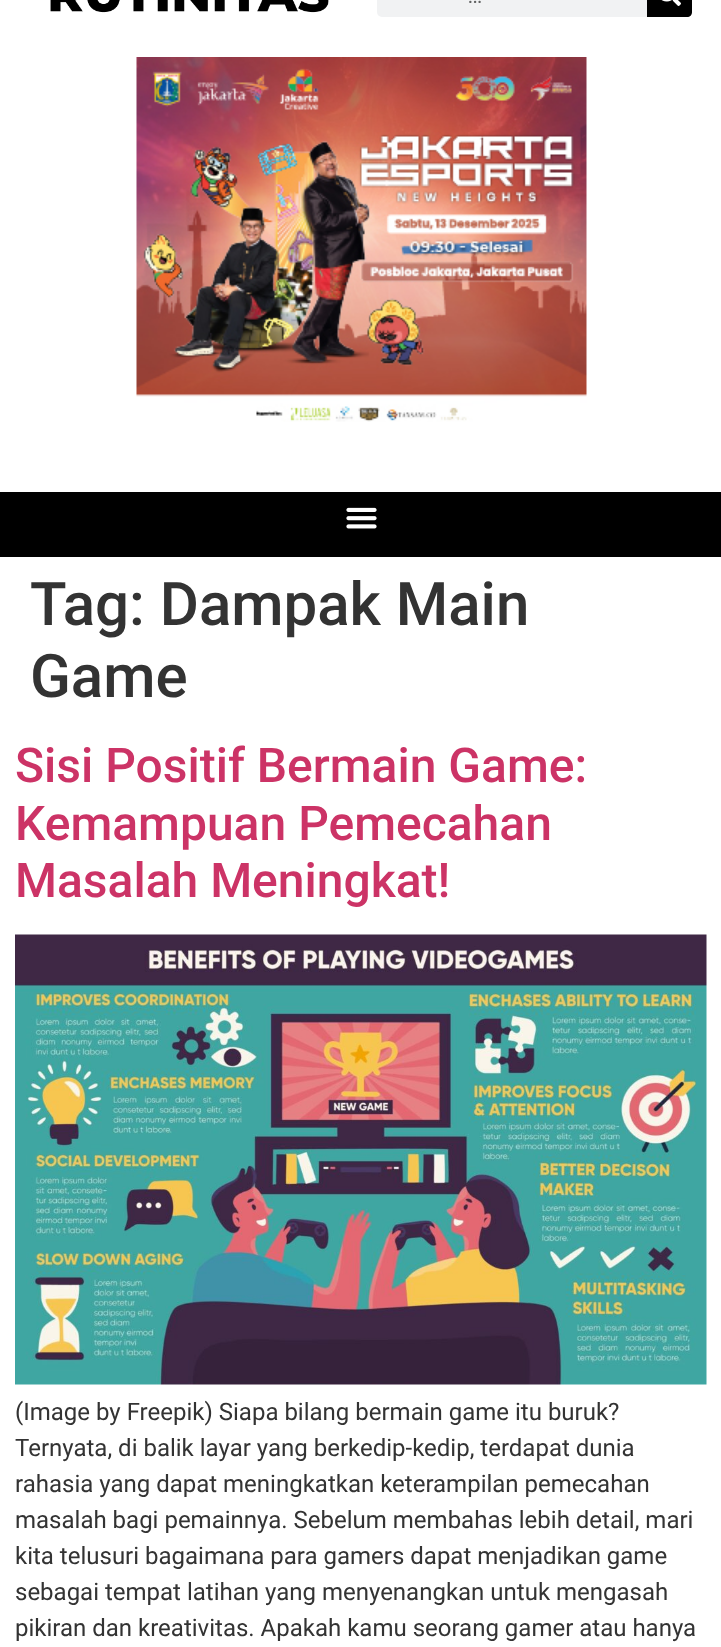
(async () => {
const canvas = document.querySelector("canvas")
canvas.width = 721
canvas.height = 1647
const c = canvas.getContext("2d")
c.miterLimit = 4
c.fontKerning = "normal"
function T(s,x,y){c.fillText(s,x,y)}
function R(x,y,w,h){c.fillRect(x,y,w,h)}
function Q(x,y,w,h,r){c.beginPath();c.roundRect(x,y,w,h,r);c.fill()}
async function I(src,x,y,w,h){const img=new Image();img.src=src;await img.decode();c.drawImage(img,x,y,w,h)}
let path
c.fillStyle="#fff"
R(0,0,721,1647)
await I("1.png",50,0,279,13)
c.fillStyle="#f1f2f3"
Q(377,-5,315,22,5)
c.font="22px Montserrat"
c.fillStyle="#606161"
T("...",468,3)
c.fillStyle="#000"
path = new Path2D("M647-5h40c3 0 5 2 5 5v12c0 3-2 5-5 5h-40z")
c.fill(path)
await I("2.png",661,0,20,6)
await I("3.png",136,57,451,365)
R(0,492,721,65)
await I("4.png",346,507,31,22)
c.font="500 60px Roboto"
c.fillStyle="#333"
T("Tag: Dampak Main",30,625)
T("Game",30,697)
c.font="500 48px Roboto"
c.fillStyle="#c36"
T("Sisi Positif Bermain Game:",15,782)
T("Kemampuan Pemecahan",15,840)
T("Masalah Meningkat!",15,897)
await I("5.png",15,934,692,451)
c.font="24px Roboto"
c.fillStyle="#333"
T("(Image by Freepik) Siapa bilang bermain game itu buruk?",15,1420)
T("Ternyata, di balik layar yang berkedip-kedip, terdapat dunia",15,1456)
T("rahasia yang dapat meningkatkan keterampilan pemecahan",15,1492)
T("masalah bagi pemainnya. Sebelum membahas lebih detail, mari",15,1528)
T("kita telusuri bagaimana para gamers dapat menjadikan game",15,1564)
T("sebagai tempat latihan yang menyenangkan untuk mengasah",15,1600)
T("pikiran dan kreativitas. Apakah kamu seorang gamer atau hanya",15,1636)
})()
